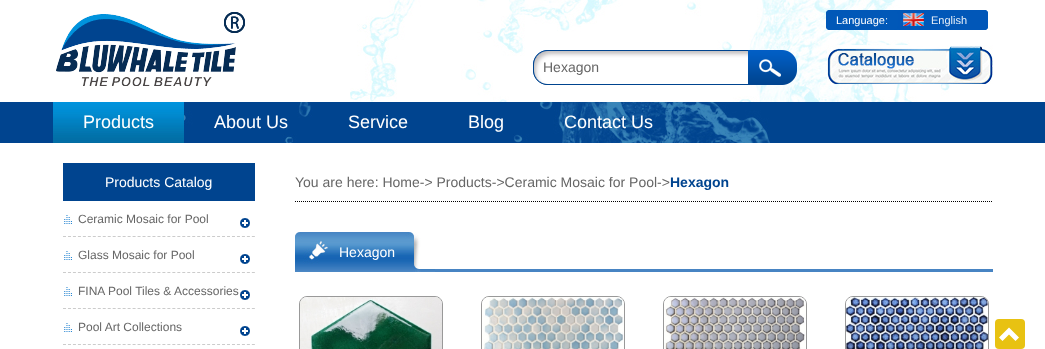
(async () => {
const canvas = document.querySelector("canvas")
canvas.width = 1045
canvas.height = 349
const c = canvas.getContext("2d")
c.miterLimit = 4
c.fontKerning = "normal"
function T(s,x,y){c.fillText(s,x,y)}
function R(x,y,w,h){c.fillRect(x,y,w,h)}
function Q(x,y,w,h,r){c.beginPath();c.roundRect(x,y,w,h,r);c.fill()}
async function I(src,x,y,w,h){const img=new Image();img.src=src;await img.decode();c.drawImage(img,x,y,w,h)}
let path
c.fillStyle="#fff"
R(0,0,1045,349)
c.fillStyle="#00448f"
R(0,102,1045,41)
await I("2.png",350,0,614,102)
c.fillStyle="#0158b8"
Q(826,10,162,20,4)
Q(826,10,72,20,4)
c.font="11px Liberation Sans"
c.fillStyle="#fff"
T("Language:",836,24)
c.fillStyle="#0158b8e6"
Q(898,10,90,20,4)
Q(903,10,85,20,4)
await I("1.png",903,13,21,13)
c.fillStyle="#e6eef8"
T("English",931,24)
await I("3.png",56,12,189,74)
await I("4.png",533,50,215,35)
c.font="14px Liberation Sans"
c.fillStyle="#666"
T("Hexagon",543,72)
await I("5.png",748,50,49,35)
await I("6.png",827,45,166,39)
await I("7.png",184,102,586,41)
await I("8.png",53,102,131,41)
c.font="18px Liberation Sans"
c.fillStyle="#fff"
T("Products",83,128)
T("About Us",214,128)
T("Service",348,128)
T("Blog",468,128)
T("Contact Us",564,128)
c.fillStyle="#00448f"
R(63,163,192,38)
c.font="14px Liberation Sans"
c.fillStyle="#fff"
T("Products Catalog",105,187)
await I("9.png",64,215,8,9)
path = new Path2D("M63 236.5h192")
c.strokeStyle="#ccc"
c.setLineDash([3,1.97])
c.stroke(path)
c.font="12px Liberation Sans"
c.fillStyle="#666"
T("Ceramic Mosaic for Pool",78,223)
await I("10.png",240,218,10,10)
await I("9.png",64,251,8,9)
path = new Path2D("M63 272.5h192")
c.stroke(path)
T("Glass Mosaic for Pool",78,259)
await I("10.png",240,254,10,10)
await I("9.png",64,287,8,9)
path = new Path2D("M63 308.5h192")
c.stroke(path)
T("FINA Pool Tiles & Accessories",78,295)
await I("10.png",240,290,10,10)
await I("9.png",64,323,8,9)
path = new Path2D("M63 344.5h192")
c.stroke(path)
T("Pool Art Collections",78,331)
await I("10.png",240,326,10,10)
path = new Path2D("M295 201.5h698")
c.strokeStyle="#000"
c.setLineDash([1,1])
c.stroke(path)
c.font="14px Liberation Sans"
T("You are here: Home-> Products->Ceramic Mosaic for Pool->",295,187)
c.font="bold 14px Liberation Sans"
c.fillStyle="#00448f"
T("Hexagon",670,187)
c.fillStyle="#4784c3"
R(435,269,558,3)
await I("11.png",295,232,34,40)
await I("12.png",329,232,76,40)
c.font="14px Liberation Sans"
c.fillStyle="#fff"
T("Hexagon",339,257)
await I("13.png",405,232,30,40)
c.beginPath()
c.roundRect(299.5,296.5,143,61,7.5)
c.strokeStyle="#999"
c.setLineDash([])
c.stroke()
await I("14.png",300,297,142,52)
c.beginPath()
c.roundRect(481.5,296.5,143,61,7.5)
c.stroke()
await I("15.png",482,297,142,52)
c.beginPath()
c.roundRect(663.5,296.5,143,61,7.5)
c.stroke()
await I("16.png",664,297,142,52)
c.beginPath()
c.roundRect(845.5,296.5,143,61,7.5)
c.stroke()
await I("17.png",846,297,142,52)
c.fillStyle="#e8c212"
Q(995,319,30,30,4)
c.fillStyle="#fff"
path = new Path2D("M1019 337.5l-3.5 3.5l-6.5-6.5l-6.5 6.5l-3.5-3.5l10-10z")
c.fill(path)
})()
